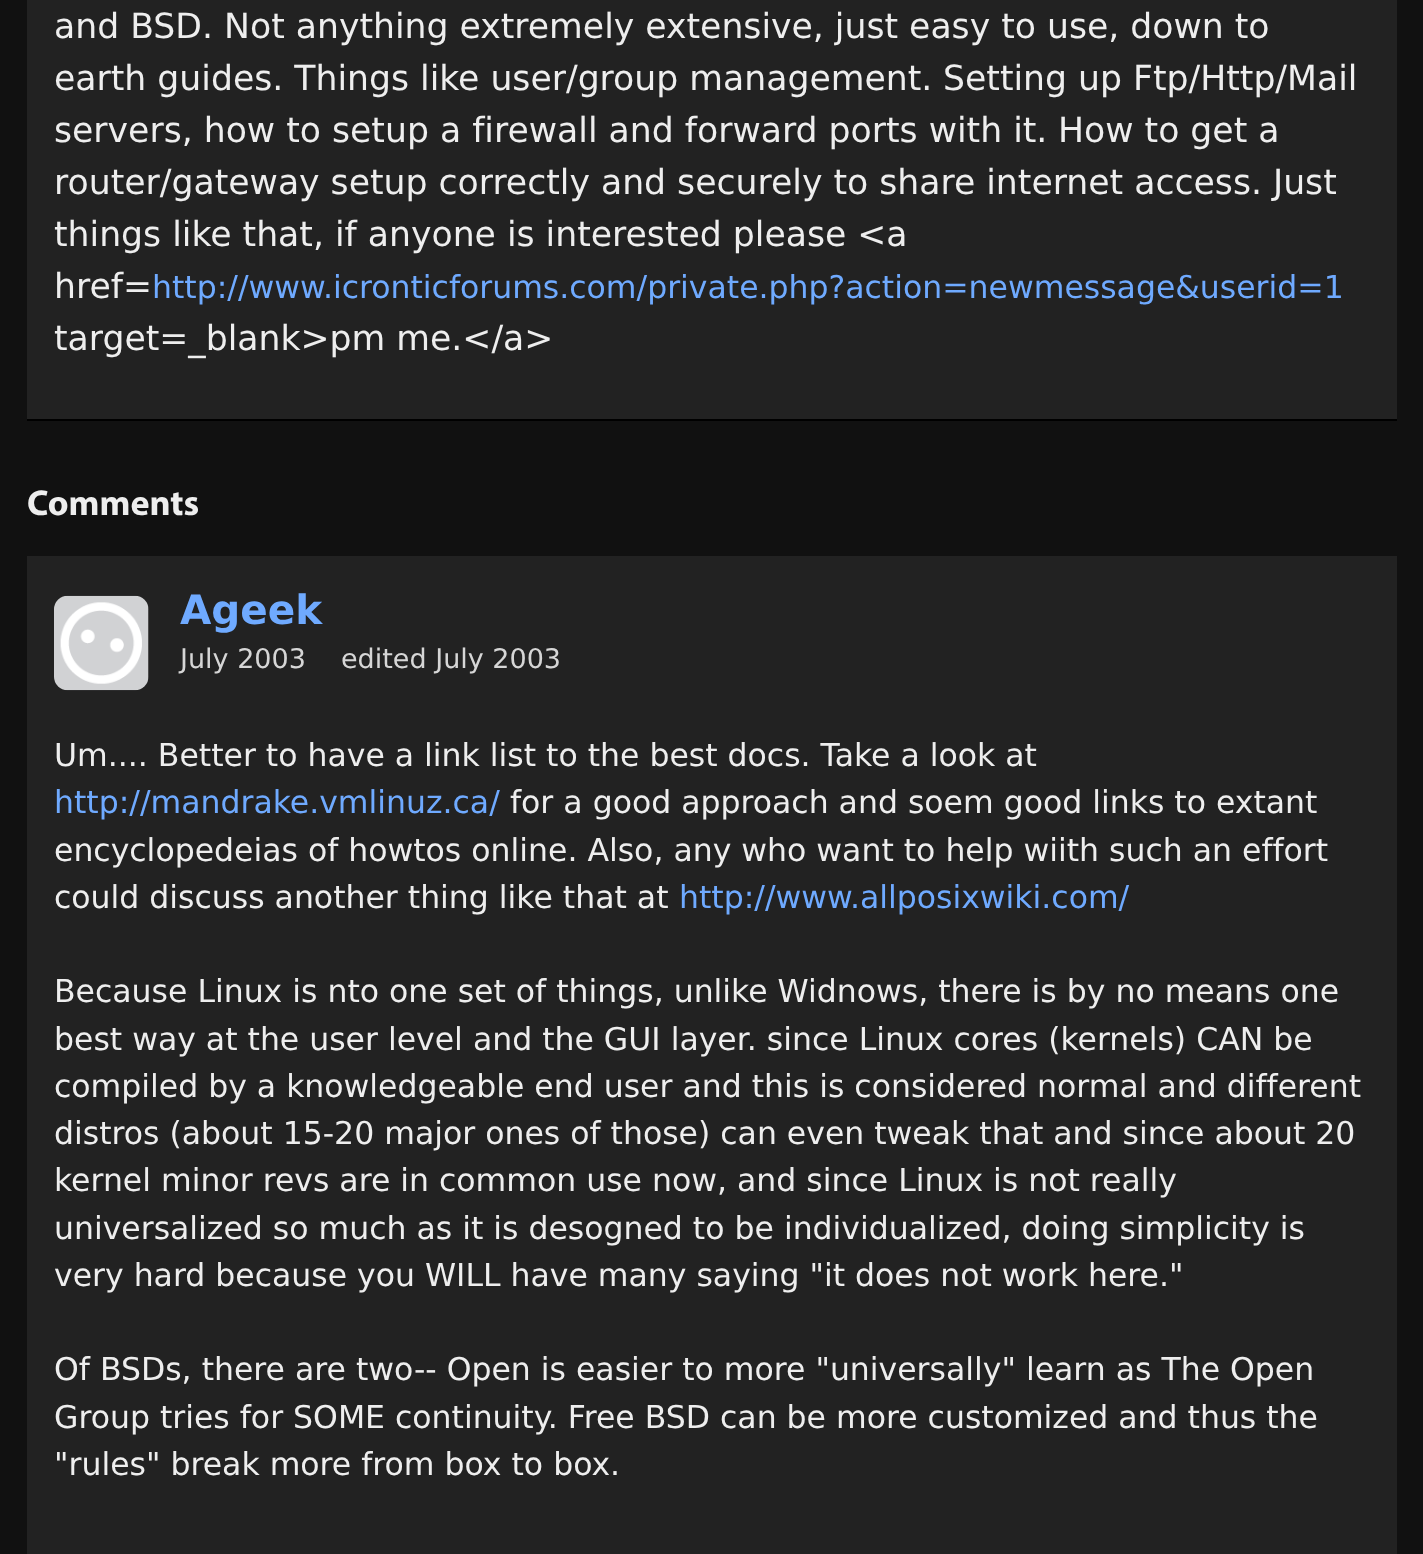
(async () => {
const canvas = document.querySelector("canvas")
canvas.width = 1423
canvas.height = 1554
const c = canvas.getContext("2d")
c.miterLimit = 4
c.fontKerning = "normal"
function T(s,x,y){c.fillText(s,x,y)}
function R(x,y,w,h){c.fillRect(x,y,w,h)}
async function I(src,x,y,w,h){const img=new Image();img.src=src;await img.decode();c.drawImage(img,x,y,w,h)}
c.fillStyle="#111"
R(0,0,1423,1554)
c.fillStyle="#222"
R(27,0,1370,419)
c.fillStyle="#000"
R(27,419,1370,2)
c.font="34.65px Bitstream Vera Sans"
c.fillStyle="#eee"
T("and BSD. Not anything extremely extensive, just easy to use, down to",54,38)
T("earth guides. Things like user/group management.",54,90)
T("Setting up Ftp/Http/Mail",943,90)
T("servers, how to setup a firewall and forward ports with it.",54,142)
T("How to get a",1058,142)
T("router/gateway setup correctly and securely to share internet access. Just",54,194)
T("things like that, if anyone is interested please <a",54,246)
T("href=",54,298)
c.font="31.5px Bitstream Vera Sans"
c.fillStyle="#6faaff"
T("http://www.icronticforums.com/private.php?action=newmessage&userid=1",152,298)
c.font="34.65px Bitstream Vera Sans"
c.fillStyle="#eee"
T("target=_blank>pm me.<\/a>",54,350)
c.font="bold 36px Myriad"
T("Comments",27,515)
c.fillStyle="#222"
R(27,556,1370,998)
await I("1.png",54,595,95,96)
c.font="bold 40.5px Bitstream Vera Sans"
c.fillStyle="#6faaff"
T("Ageek",180,624)
c.font="27px Bitstream Vera Sans"
c.fillStyle="#d6d6d6"
T("July 2003",180,668)
T("edited July 2003",341,668)
c.font="31.5px Bitstream Vera Sans"
c.fillStyle="#eee"
T("Um.... Better to have a link list to the best docs. Take a look at",54,766)
c.fillStyle="#6faaff"
T("http://mandrake.vmlinuz.ca/",54,813)
c.fillStyle="#eee"
T("for a good approach and soem good links to extant",510,813)
T("encyclopedeias of howtos online. Also, any who want to help wiith such an effort",54,861)
T("could discuss another thing like that at",54,908)
c.fillStyle="#6faaff"
T("http://www.allposixwiki.com/",679,908)
c.fillStyle="#eee"
T("Because Linux is nto one set of things, unlike Widnows, there is by no means one",54,1002)
T("best way at the user level and the GUI layer. since Linux cores (kernels) CAN be",54,1050)
T("compiled by a knowledgeable end user and this is considered normal and different",54,1097)
T("distros (about 15-20 major ones of those) can even tweak that and since about 20",54,1144)
T("kernel minor revs are in common use now, and since Linux is not really",54,1191)
T("universalized so much as it is desogned to be individualized, doing simplicity is",54,1239)
T("very hard because you WILL have many saying \"it does not work here.\"",54,1286)
T("Of BSDs, there are two-- Open is easier to more \"universally\" learn as The Open",54,1380)
T("Group tries for SOME continuity. Free BSD can be more customized and thus the",54,1428)
T("\"rules\" break more from box to box.",54,1475)
})()
